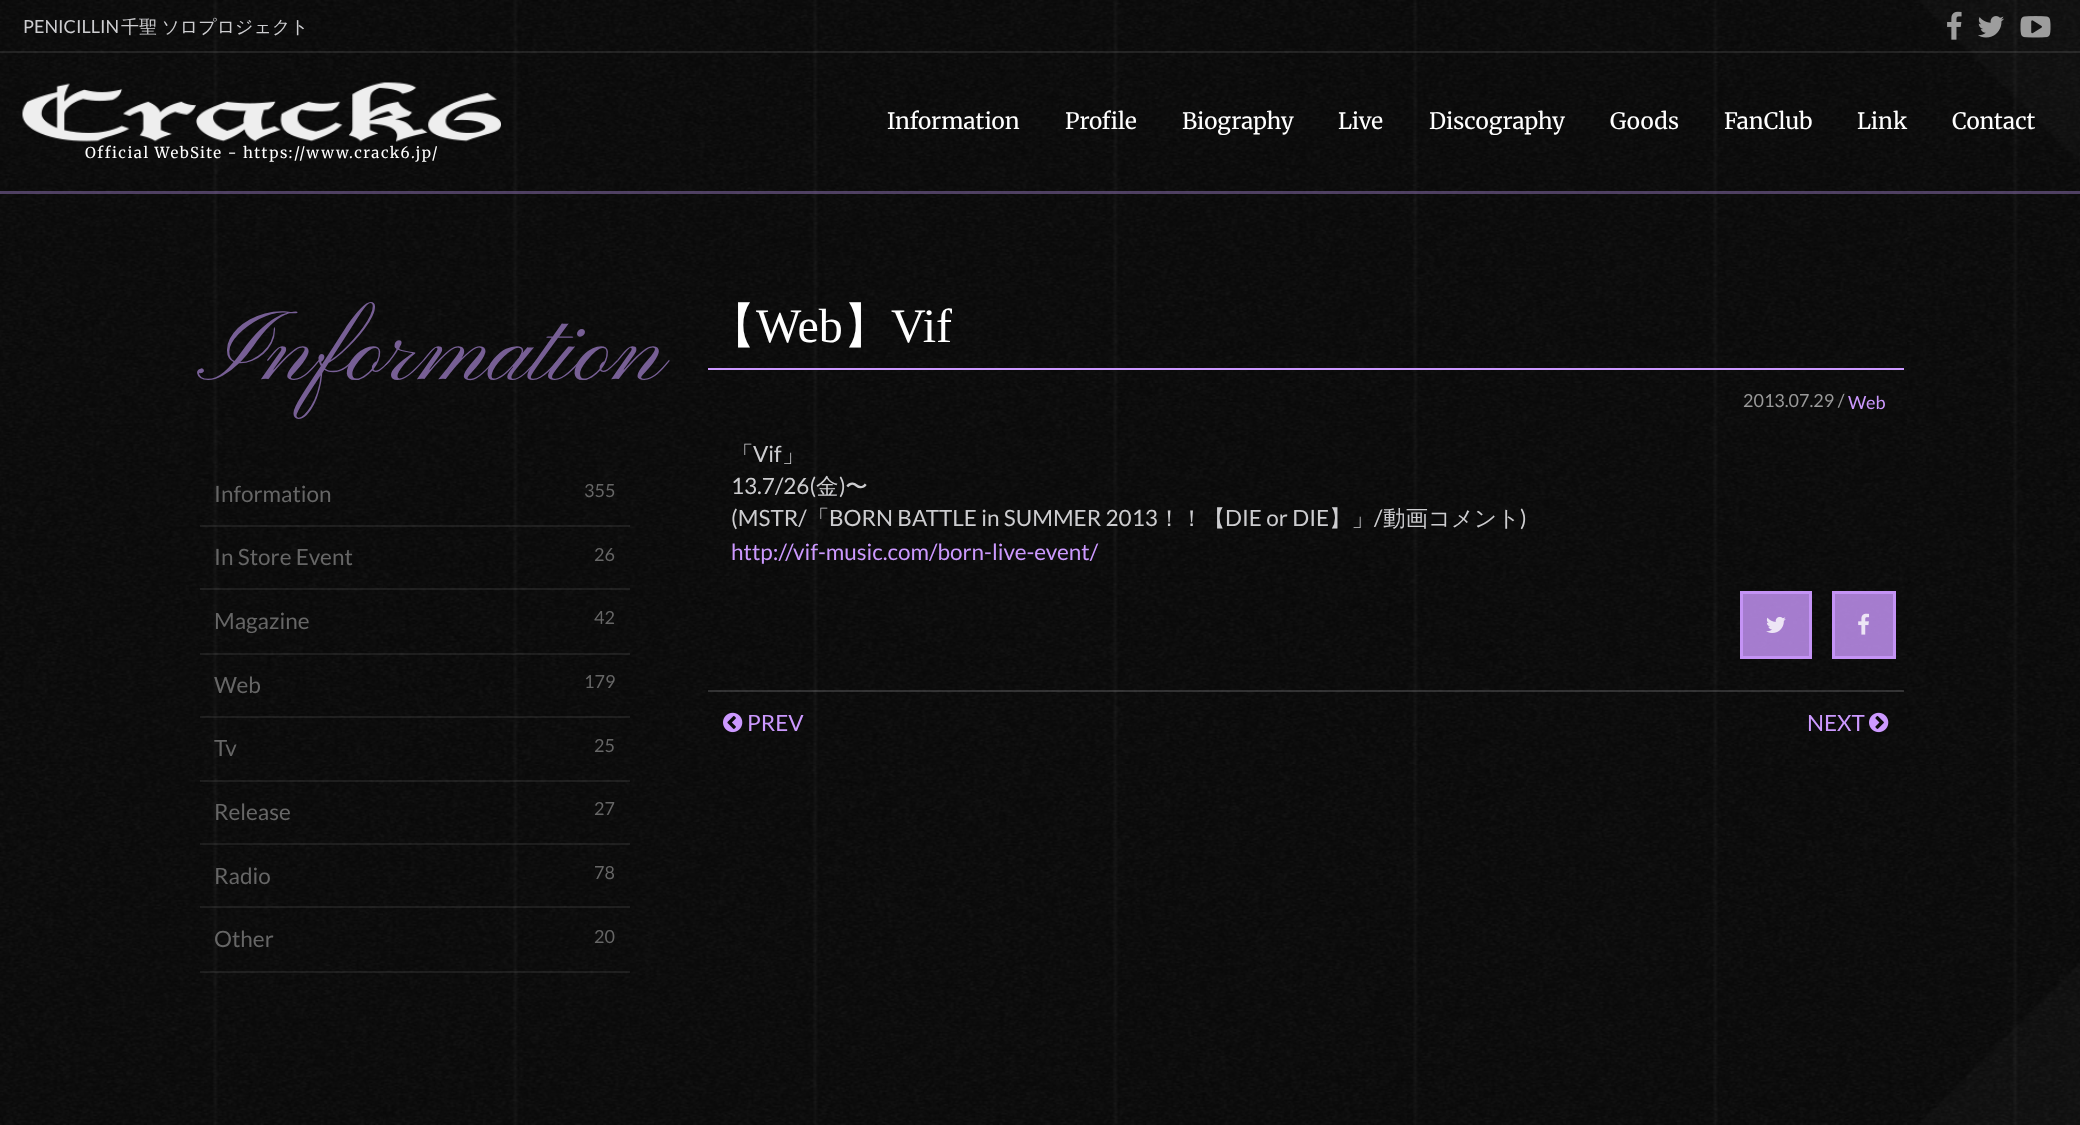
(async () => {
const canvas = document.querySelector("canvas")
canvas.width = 2080
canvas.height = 1125
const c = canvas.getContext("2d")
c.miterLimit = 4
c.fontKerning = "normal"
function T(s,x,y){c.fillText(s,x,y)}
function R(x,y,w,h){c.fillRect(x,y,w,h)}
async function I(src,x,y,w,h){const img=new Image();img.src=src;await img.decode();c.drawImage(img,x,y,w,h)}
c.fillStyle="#fff"
R(0,0,2080,1125)
await I("1.png",0,0,2080,1125)
c.fillStyle="#9274b780"
R(0,191,2080,3)
c.fillStyle="#ffffff1a"
R(0,51,2080,2)
c.font="18px Lato"
c.fillStyle="#cdcdd0"
T("PENICILLIN",23,33)
c.wordSpacing="-1px"
c.font="500 18px WenQuanYi Zen Hei"
T("千聖 ソロプロジェクト",121,33)
await I("2.png",1947,11,15,29)
await I("3.png",1978,16,26,22)
await I("4.png",2020,16,31,22)
c.wordSpacing="0px"
c.font="22.5px Merriweather"
c.fillStyle="#fff"
T("Information",887,129)
T("Profile",1065,129)
T("Biography",1182,129)
T("Live",1338,129)
T("Discography",1429,129)
T("Goods",1610,129)
T("FanClub",1724,129)
T("Link",1857,129)
T("Contact",1952,129)
await I("5.png",22,82,479,60)
c.letterSpacing="1.5px"
c.font="15px Merriweather"
T("Official WebSite - https://www.crack6.jp/",85,158)
c.letterSpacing="0px"
c.font="101.25px Pinyon Script"
c.fillStyle="#775f95"
T("Information",197,380)
c.fillStyle="#cdcdd01a"
R(200,525,430,2)
c.font="22.5px Lato"
c.fillStyle="#666"
T("Information",214,502)
c.font="18px Lato"
T("355",584,497)
c.fillStyle="#cdcdd01a"
R(200,588,430,2)
c.font="22.5px Lato"
c.fillStyle="#666"
T("In Store Event",214,565)
c.font="18px Lato"
T("26",594,561)
c.fillStyle="#cdcdd01a"
R(200,653,430,2)
c.font="22.5px Lato"
c.fillStyle="#666"
T("Magazine",214,629)
c.font="18px Lato"
T("42",594,624)
c.fillStyle="#cdcdd01a"
R(200,716,430,2)
c.font="22.5px Lato"
c.fillStyle="#666"
T("Web",214,693)
c.font="18px Lato"
T("179",584,688)
c.fillStyle="#cdcdd01a"
R(200,780,430,2)
c.font="22.5px Lato"
c.fillStyle="#666"
T("Tv",214,756)
c.font="18px Lato"
T("25",594,752)
c.fillStyle="#cdcdd01a"
R(200,843,430,2)
c.font="22.5px Lato"
c.fillStyle="#666"
T("Release",214,820)
c.font="18px Lato"
T("27",594,815)
c.fillStyle="#cdcdd01a"
R(200,906,430,2)
c.font="22.5px Lato"
c.fillStyle="#666"
T("Radio",214,884)
c.font="18px Lato"
T("78",594,879)
c.fillStyle="#cdcdd01a"
R(200,971,430,2)
c.font="22.5px Lato"
c.fillStyle="#666"
T("Other",214,947)
c.font="18px Lato"
T("20",594,943)
c.fillStyle="#c9f"
R(708,368,1196,2)
c.font="500 48px WenQuanYi Zen Hei"
c.fillStyle="#fff"
T("【",708,342)
c.font="48px Liberation Serif"
T("Web",756,342)
c.font="500 48px WenQuanYi Zen Hei"
T("】",843,342)
c.font="48px Liberation Serif"
T("Vif",891,342)
c.font="18px Lato"
c.fillStyle="#999"
T("2013.07.29 /",1743,407)
c.fillStyle="#c9f"
T("Web",1848,409)
c.font="500 22.5px WenQuanYi Zen Hei"
c.fillStyle="#cdcdd0"
T("「",731,462)
c.font="22.5px Lato"
T("Vif",753,462)
c.font="500 22.5px WenQuanYi Zen Hei"
T("」",782,462)
c.font="22.5px Lato"
T("13.7/26(",731,494)
c.font="500 22.5px WenQuanYi Zen Hei"
T("金 〜",816,494)
c.font="22.5px Lato"
T(")",839,494)
T("(MSTR/",731,526)
c.font="500 22.5px WenQuanYi Zen Hei"
T("「",807,526)
c.font="22.5px Lato"
T("BORN BATTLE in SUMMER 2013",829,526)
c.font="500 22.5px WenQuanYi Zen Hei"
T("！！【",1158,526)
c.font="22.5px Lato"
T("DIE or DIE",1225,526)
c.font="500 22.5px WenQuanYi Zen Hei"
T("】」",1329,526)
c.font="22.5px Lato"
T("/",1374,526)
c.font="500 22.5px WenQuanYi Zen Hei"
T("動画コメント",1383,526)
c.font="22.5px Lato"
T(")",1520,526)
c.fillStyle="#c9f"
T("http://vif-music.com/born-live-event/",731,560)
c.fillStyle="#cc99ffcc"
c.beginPath()
c.rect(1741.5,592.5,69,65)
c.fill()
c.strokeStyle="#c493f5"
c.lineWidth=3
c.stroke()
await I("6.png",1766,616,20,17)
c.beginPath()
c.rect(1833.5,592.5,61,65)
c.fill()
c.stroke()
await I("7.png",1858,613,12,22)
c.fillStyle="#cdcdd033"
R(708,690,1196,2)
await I("8.png",723,712,20,21)
c.fillStyle="#c9f"
T("PREV",747,731)
T("NEXT",1807,731)
await I("9.png",1869,712,20,21)
})()
